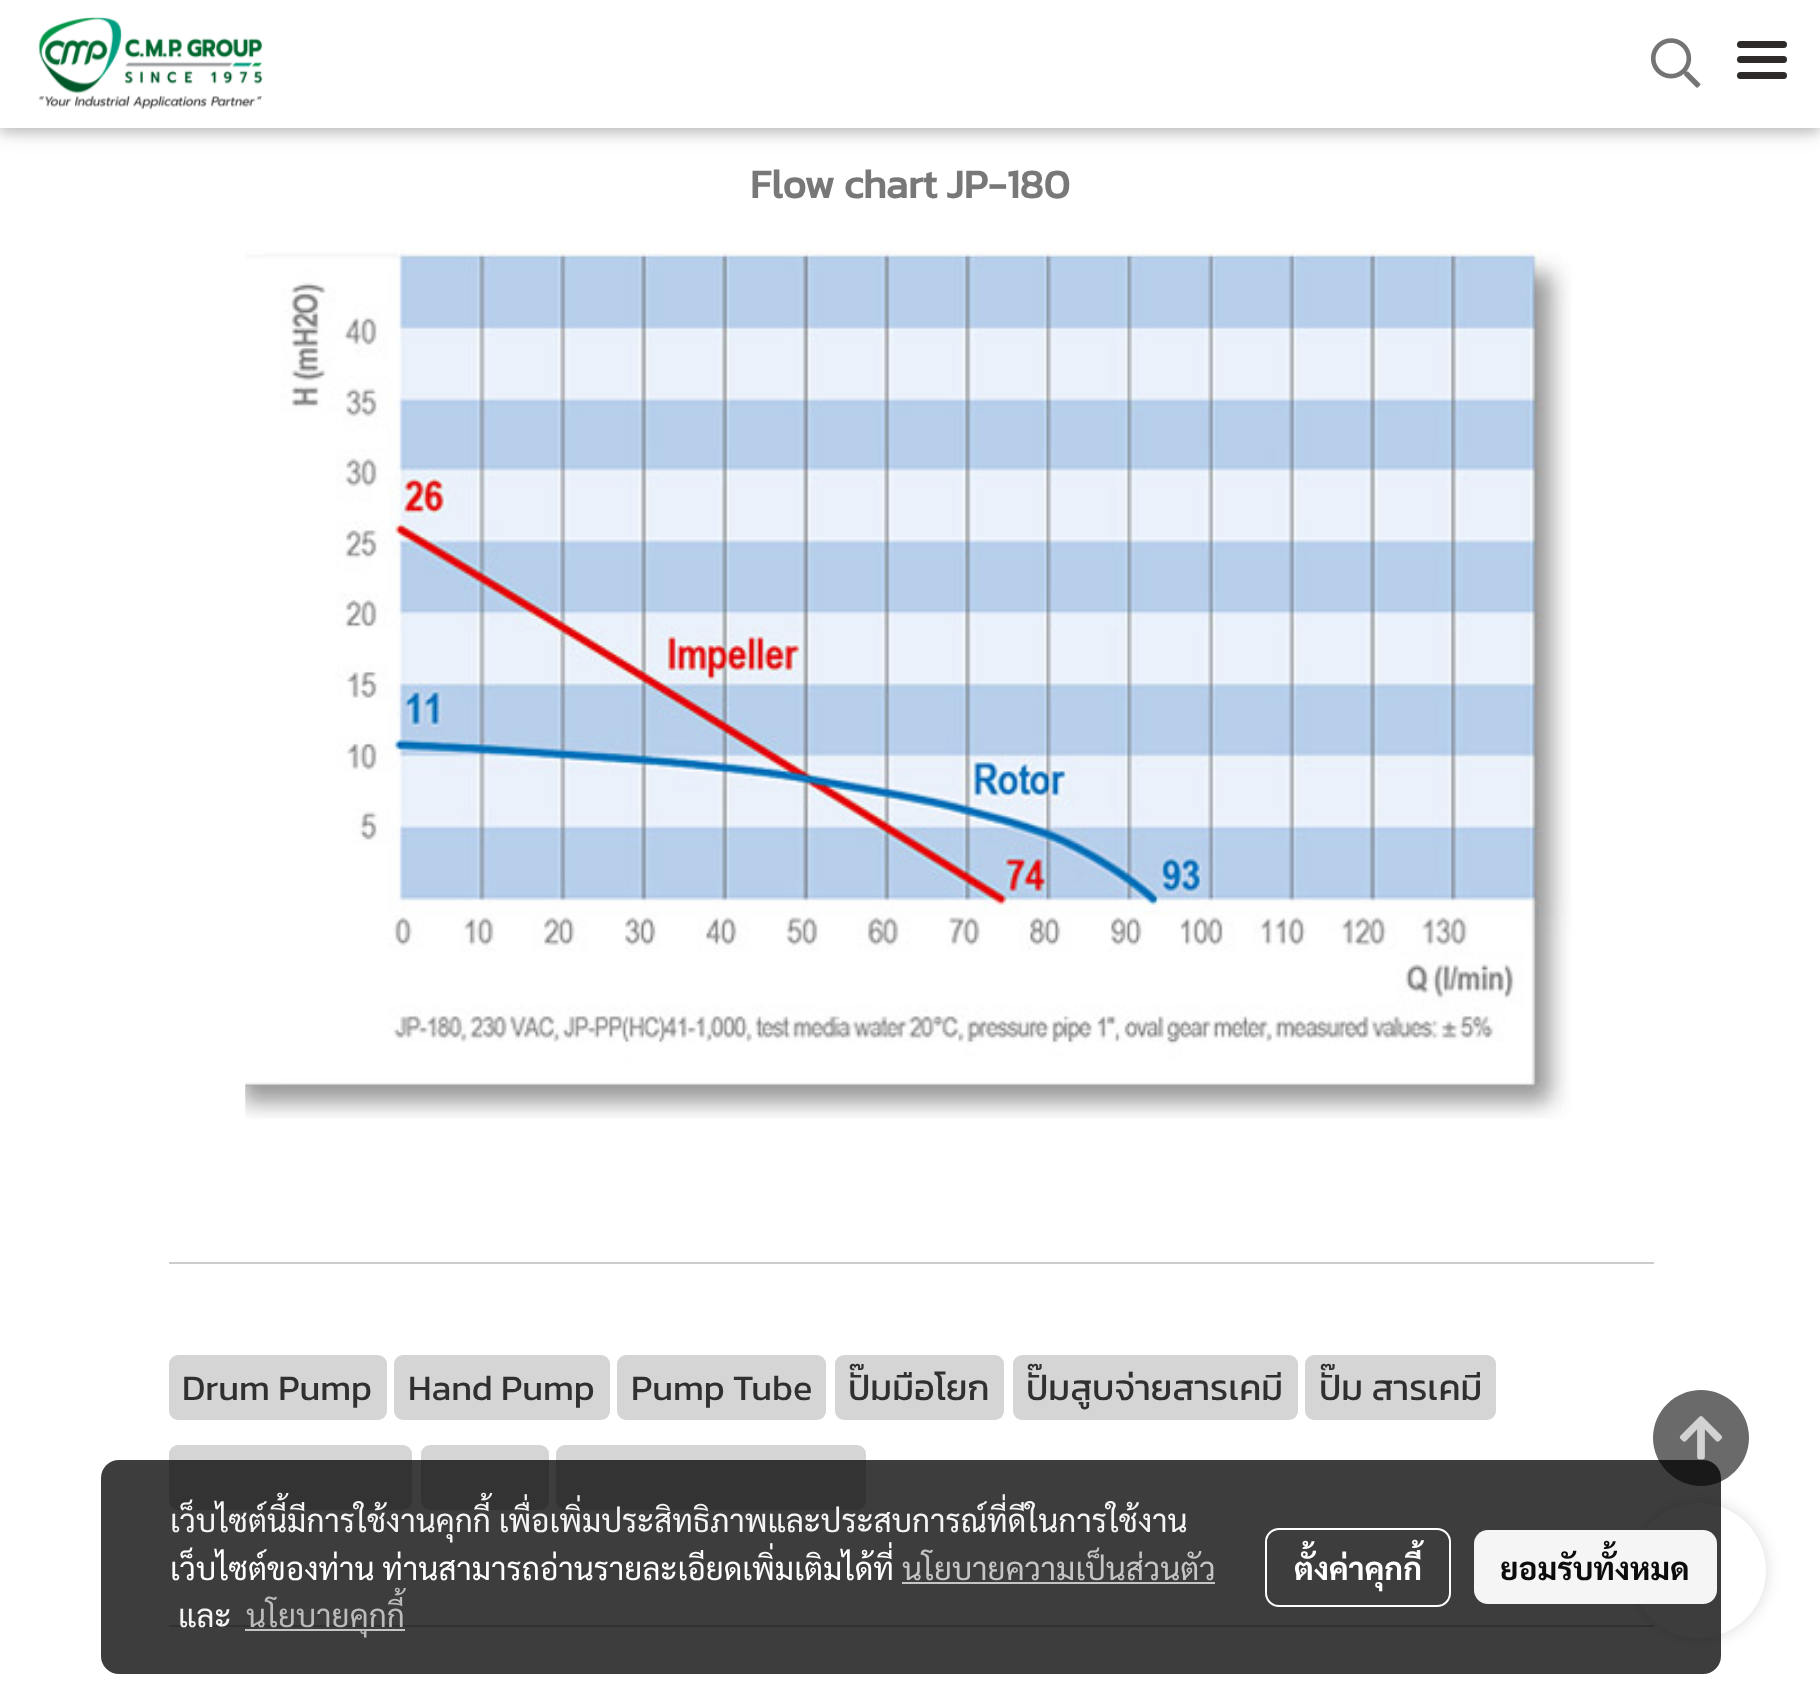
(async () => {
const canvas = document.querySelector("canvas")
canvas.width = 1820
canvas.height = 1690
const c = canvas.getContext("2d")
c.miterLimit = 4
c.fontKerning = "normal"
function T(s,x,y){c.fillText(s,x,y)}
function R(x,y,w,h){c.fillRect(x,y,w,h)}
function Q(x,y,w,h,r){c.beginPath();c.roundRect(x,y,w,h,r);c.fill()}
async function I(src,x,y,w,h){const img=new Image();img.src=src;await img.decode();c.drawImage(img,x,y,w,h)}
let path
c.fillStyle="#fff"
R(0,0,1820,1690)
c.fillStyle="#0000001f"
c.filter="blur(11px)"
c.beginPath()
c.rect(0,5,1820,128)
c.fill()
c.filter="none"
c.fillStyle="#00000029"
c.filter="blur(5.5px)"
c.beginPath()
c.rect(0,5,1820,128)
c.fill()
c.filter="none"
c.fillStyle="#fff"
R(0,0,1820,128)
await I("1.png",38,17,225,93)
await I("2.png",1650,38,51,50)
c.fillStyle="#2d2a29"
Q(1737,56,50,7,3.5)
Q(1737,41,50,7,3.5)
Q(1737,72,50,7,3.5)
c.font="bold 40.5px Kanit"
c.fillStyle="#787878"
T("Flow chart JP-180",750,198)
await I("3.png",245,249,1327,870)
c.fillStyle="#ccc"
R(169,1262,1485,2)
c.fillStyle="#d5d5d5"
Q(169,1355,218,65,9)
c.font="36px Kanit"
c.fillStyle="#303030"
T("Drum Pump",182,1400)
c.fillStyle="#d5d5d5"
Q(394,1355,216,65,9)
c.fillStyle="#303030"
T("Hand Pump",408,1400)
c.fillStyle="#d5d5d5"
Q(617,1355,209,65,9)
c.fillStyle="#303030"
T("Pump Tube",631,1400)
c.fillStyle="#d5d5d5"
Q(835,1355,169,65,9)
c.fillStyle="#303030"
T("ปั๊มมือโยก",848,1400)
c.fillStyle="#d5d5d5"
Q(1013,1355,285,65,9)
c.fillStyle="#303030"
T("ปั๊มสูบจ่ายสารเคมี",1026,1400)
c.fillStyle="#d5d5d5"
Q(1305,1355,191,65,9)
c.fillStyle="#303030"
T("ปั๊ม สารเคมี",1319,1400)
c.fillStyle="#d5d5d5"
Q(169,1445,243,65,9)
Q(421,1445,128,65,9)
Q(556,1445,310,65,9)
c.fillStyle="#ccc"
R(169,1625,1485,2)
c.fillStyle="#00000024"
c.filter="blur(8px)"
c.beginPath()
c.roundRect(1631,1503,135,135,67.5)
c.fill()
c.filter="none"
c.fillStyle="#6b6a6a"
path = new Path2D("M1701 1390c-26 0-48 21-48 48c0 26 22 48 48 48c26 0 48-22 48-48c0-27-22-48-48-48z")
c.fill(path)
await I("4.png",1679,1416,44,44)
c.fillStyle="#fff"
c.beginPath()
c.arc(1698.5,1570.5,67.5,0,7)
c.fill()
c.fillStyle="#000000c2"
Q(101,1460,1620,214,18)
c.font="31.5px Sarabun"
c.fillStyle="#f5f5f5"
T("เว็บไซต์นี้มีการใช้งานคุกกี้ เพื่อเพิ่มประสิทธิภาพและประสบการณ์ที่ดีในการใช้งาน",170,1532)
c.fillStyle="#fff"
T("เว็บไซต์ของท่าน ท่านสามารถอ่านรายละเอียดเพิ่มเติมได้ที่",170,1580)
c.fillStyle="#c5c5c5"
T("นโยบายความเป็นส่วนตัว",902,1580)
R(902,1582,313,2)
c.fillStyle="#f5f5f5"
T("และ",178,1627)
c.fillStyle="#c5c5c5"
R(245,1629,160,2)
c.fillStyle="#bbb"
T("นโยบายคุกกี้",246,1627)
c.beginPath()
c.roundRect(1266,1529,184,77,13)
c.strokeStyle="#fff"
c.lineWidth=2
c.stroke()
c.font="bold 31.5px Sarabun"
c.fillStyle="#fff"
T("ตั้งค่าคุกกี้",1294,1580)
c.fillStyle="#fffffff2"
Q(1474,1530,243,74,14)
c.fillStyle="#0c0c0c"
T("ยอมรับทั้งหมด",1500,1580)
})()
